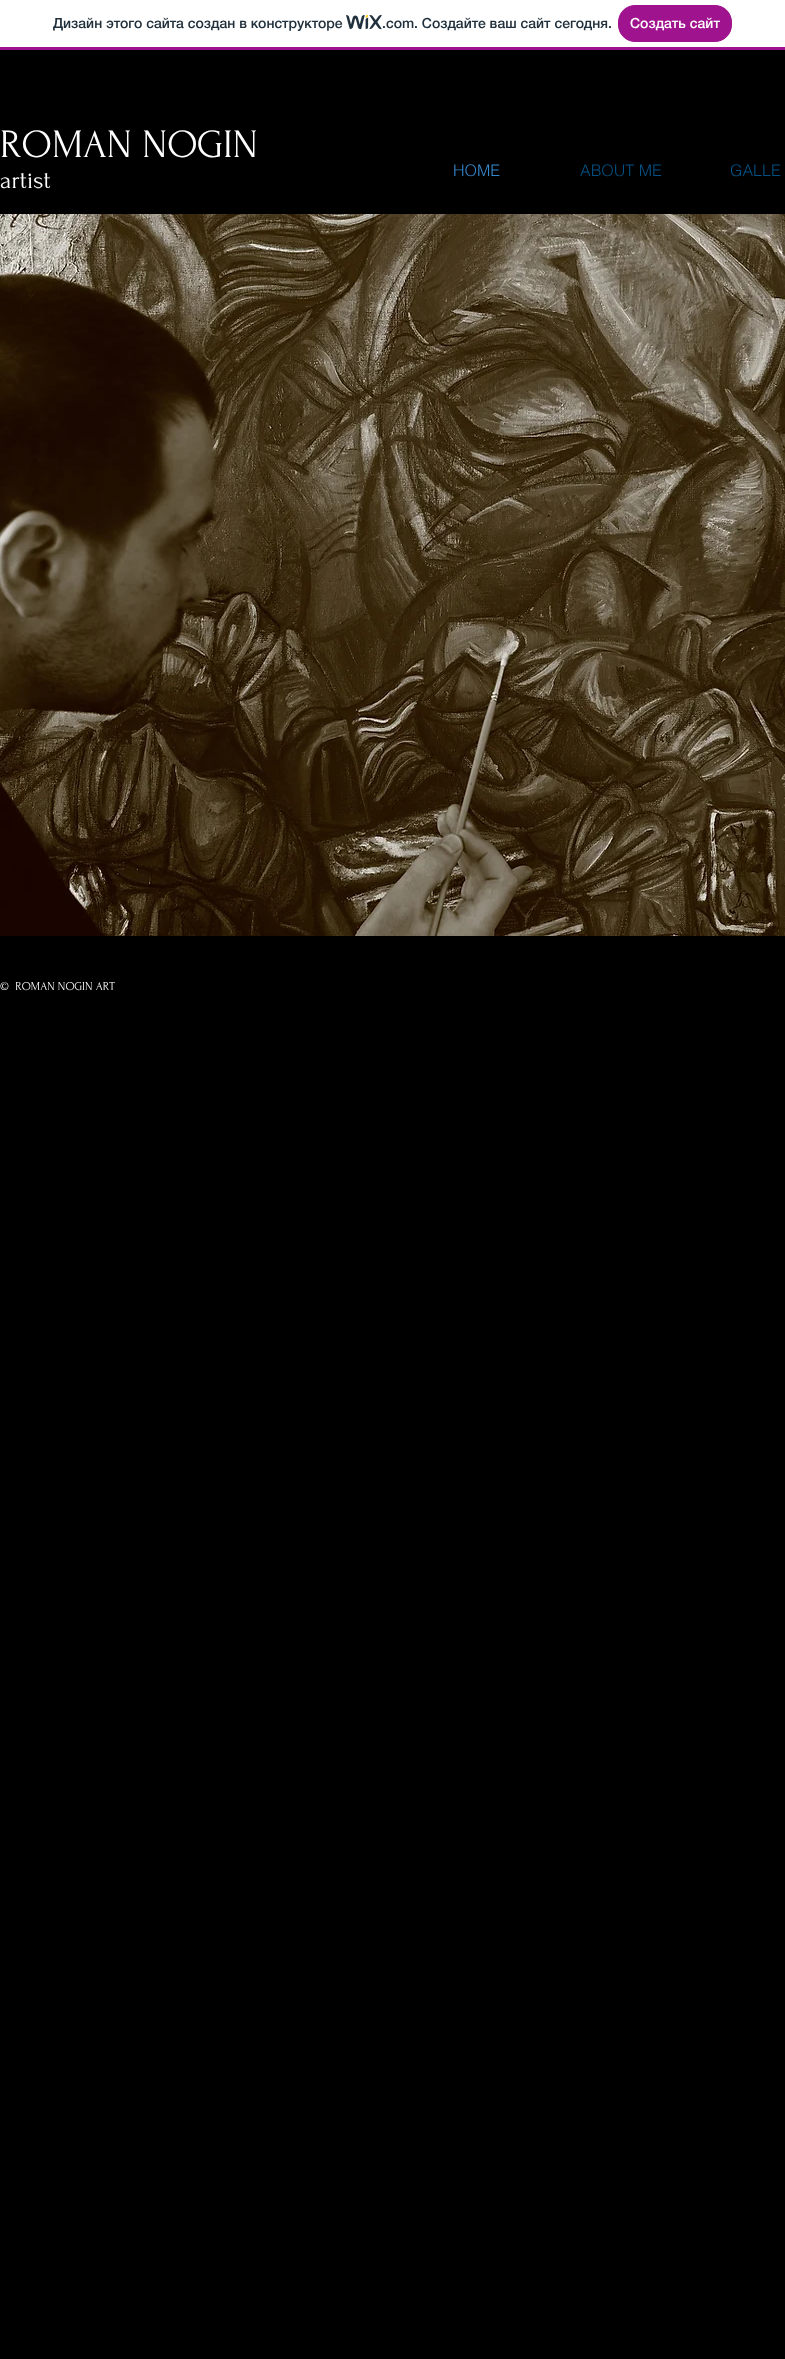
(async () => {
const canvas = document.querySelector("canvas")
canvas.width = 785
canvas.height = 2359
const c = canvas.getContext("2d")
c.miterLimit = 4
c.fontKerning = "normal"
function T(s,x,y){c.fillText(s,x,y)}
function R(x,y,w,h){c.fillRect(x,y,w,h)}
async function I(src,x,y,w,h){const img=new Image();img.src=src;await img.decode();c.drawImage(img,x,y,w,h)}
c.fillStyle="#fff"
R(0,0,785,2359)
c.fillStyle="#a0138e"
R(0,47,785,3)
c.font="500 14px 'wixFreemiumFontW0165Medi'"
c.fillStyle="#20303c"
T("Дизайн этого сайта создан в конструкторе",53,28)
await I("1.png",346,15,36,15)
c.font="500 14px 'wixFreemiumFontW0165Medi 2'"
T(".com",382,28)
c.font="500 14px 'wixFreemiumFontW0165Medi'"
T(". Создайте ваш сайт сегодня.",414,28)
c.fillStyle="#a0138e"
c.beginPath()
c.roundRect(618.5,5.5,113,36,16.5)
c.fill()
c.strokeStyle="#a0138e"
c.stroke()
c.fillStyle="#fff"
T("Создать сайт",630,28)
c.fillStyle="#000"
R(0,50,785,2309)
c.font="40px Forum"
c.fillStyle="#fff"
T("ROMAN NOGIN",0,157)
c.font="25px Forum"
T("artist",0,188)
c.font="300 16px helvetica"
c.fillStyle="#3588cc"
T("HOME",453,176)
c.fillStyle="#045184"
T("ABOUT ME",580,176)
T("GALLE",730,176)
await I("2.png",0,214,785,722)
c.font="12px Forum"
c.fillStyle="#fff"
T("©  ROMAN NOGIN ART",0,990)
})()
